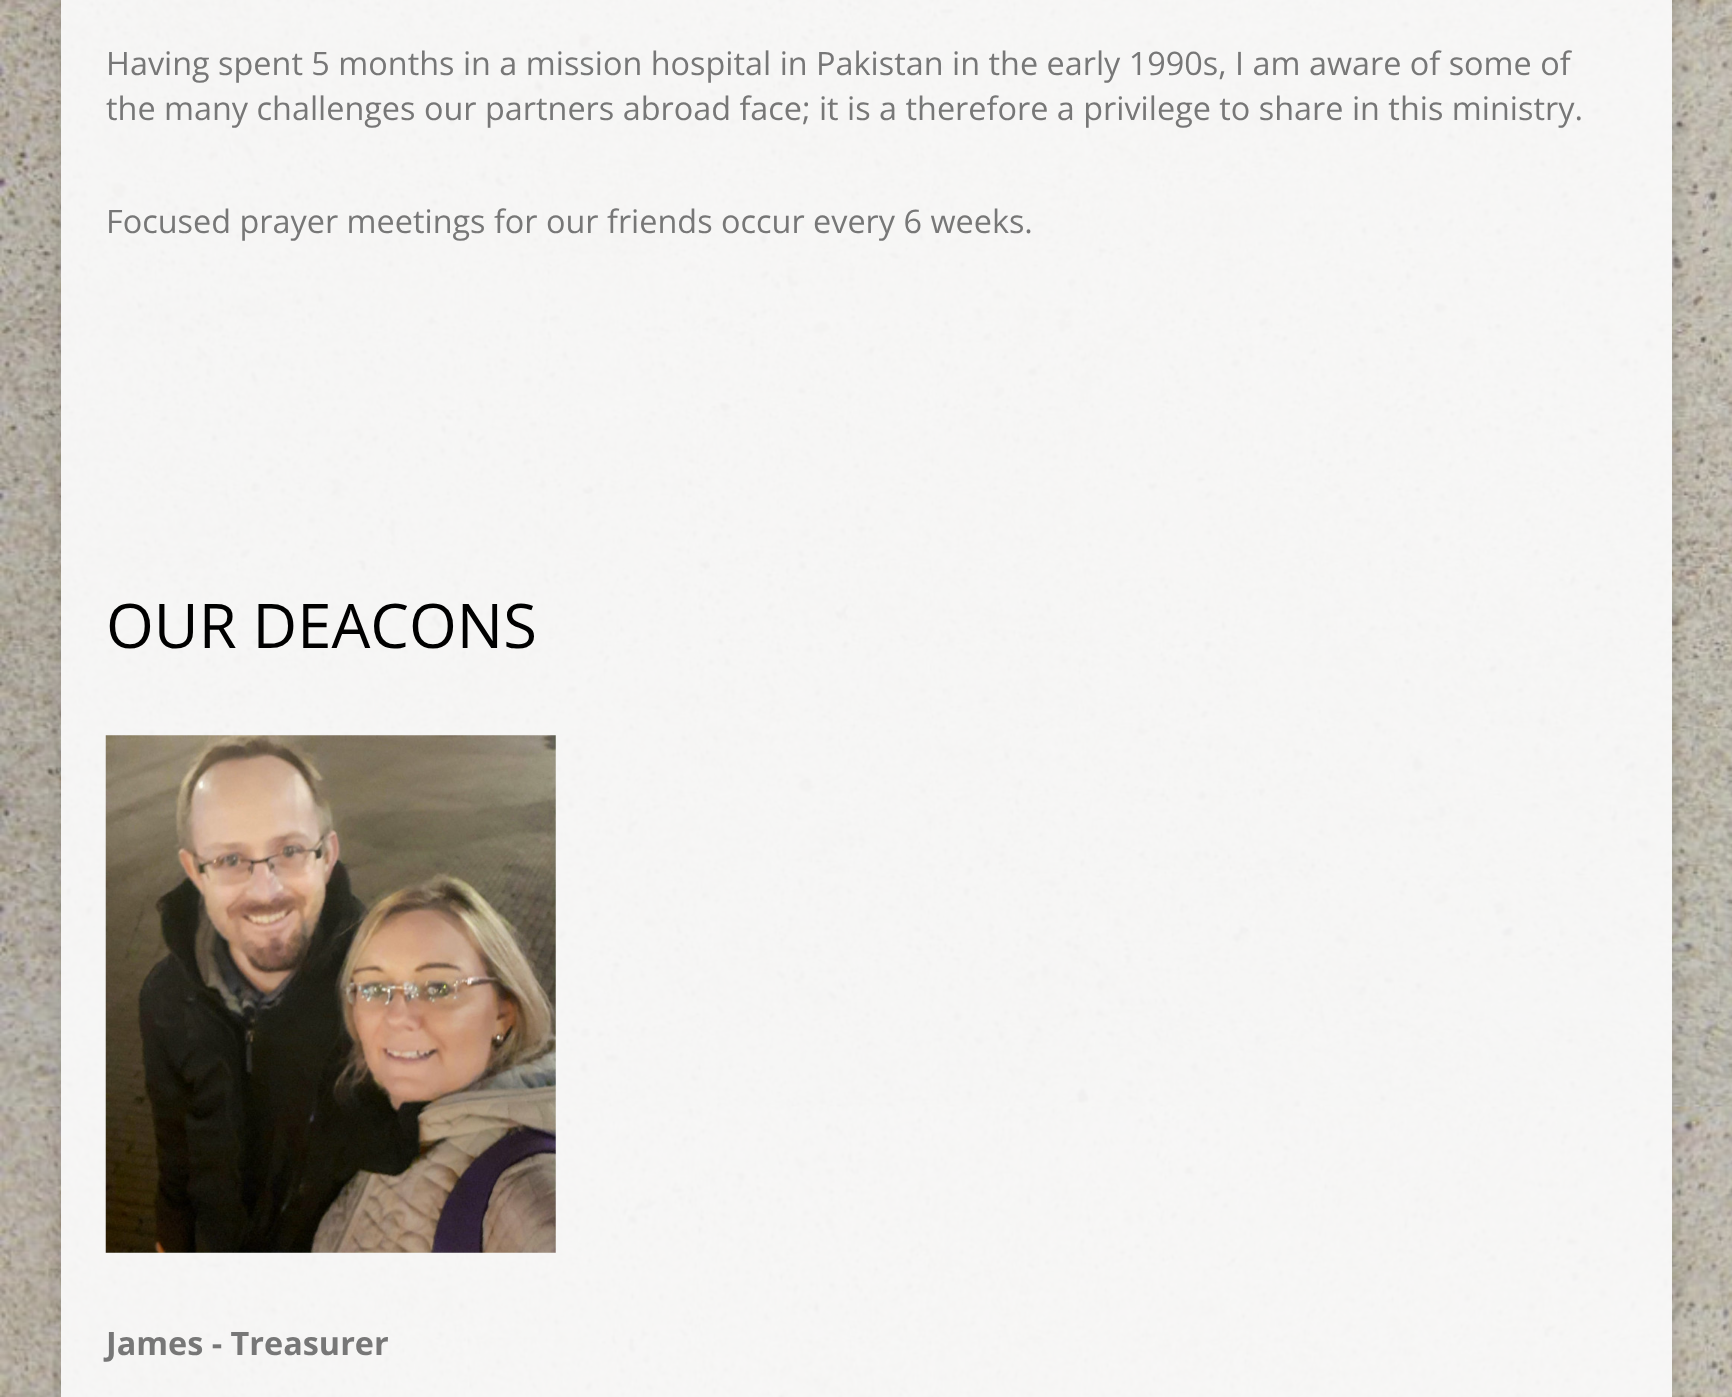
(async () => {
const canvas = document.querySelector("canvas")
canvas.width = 1732
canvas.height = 1397
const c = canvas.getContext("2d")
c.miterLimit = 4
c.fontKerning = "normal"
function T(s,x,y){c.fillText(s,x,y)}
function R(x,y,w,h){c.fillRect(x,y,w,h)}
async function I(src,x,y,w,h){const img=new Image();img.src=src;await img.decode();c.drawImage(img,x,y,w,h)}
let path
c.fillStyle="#fff"
R(0,0,1732,1397)
await I("1.png",0,0,1732,1397)
c.save()
path = new Path2D("M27 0h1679v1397h-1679zm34-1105h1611v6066h-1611z")
c.clip(path,"evenodd")
c.fillStyle="#00000026"
c.filter="blur(11px)"
c.beginPath()
c.rect(61,-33,1611,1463)
c.fill()
c.filter="none"
c.restore()
c.fillStyle="#fafafaf0"
R(61,0,1611,1397)
c.font="32.4px Open Sans"
c.fillStyle="#777"
T("Having spent 5 months in a mission hospital in Pakistan in the early 1990s, I am aware of some of",106,75)
T("the many challenges our partners abroad face; it is a therefore a privilege to share in this ministry.",106,120)
T("Focused prayer meetings for our friends occur every 6 weeks.",106,233)
c.font="61.5px Open Sans"
c.fillStyle="#000"
T("OUR DEACONS",106,648)
await I("2.png",105,735,451,518)
c.font="bold 32.4px Open Sans"
c.fillStyle="#777"
T("James - Treasurer",106,1355)
})()
